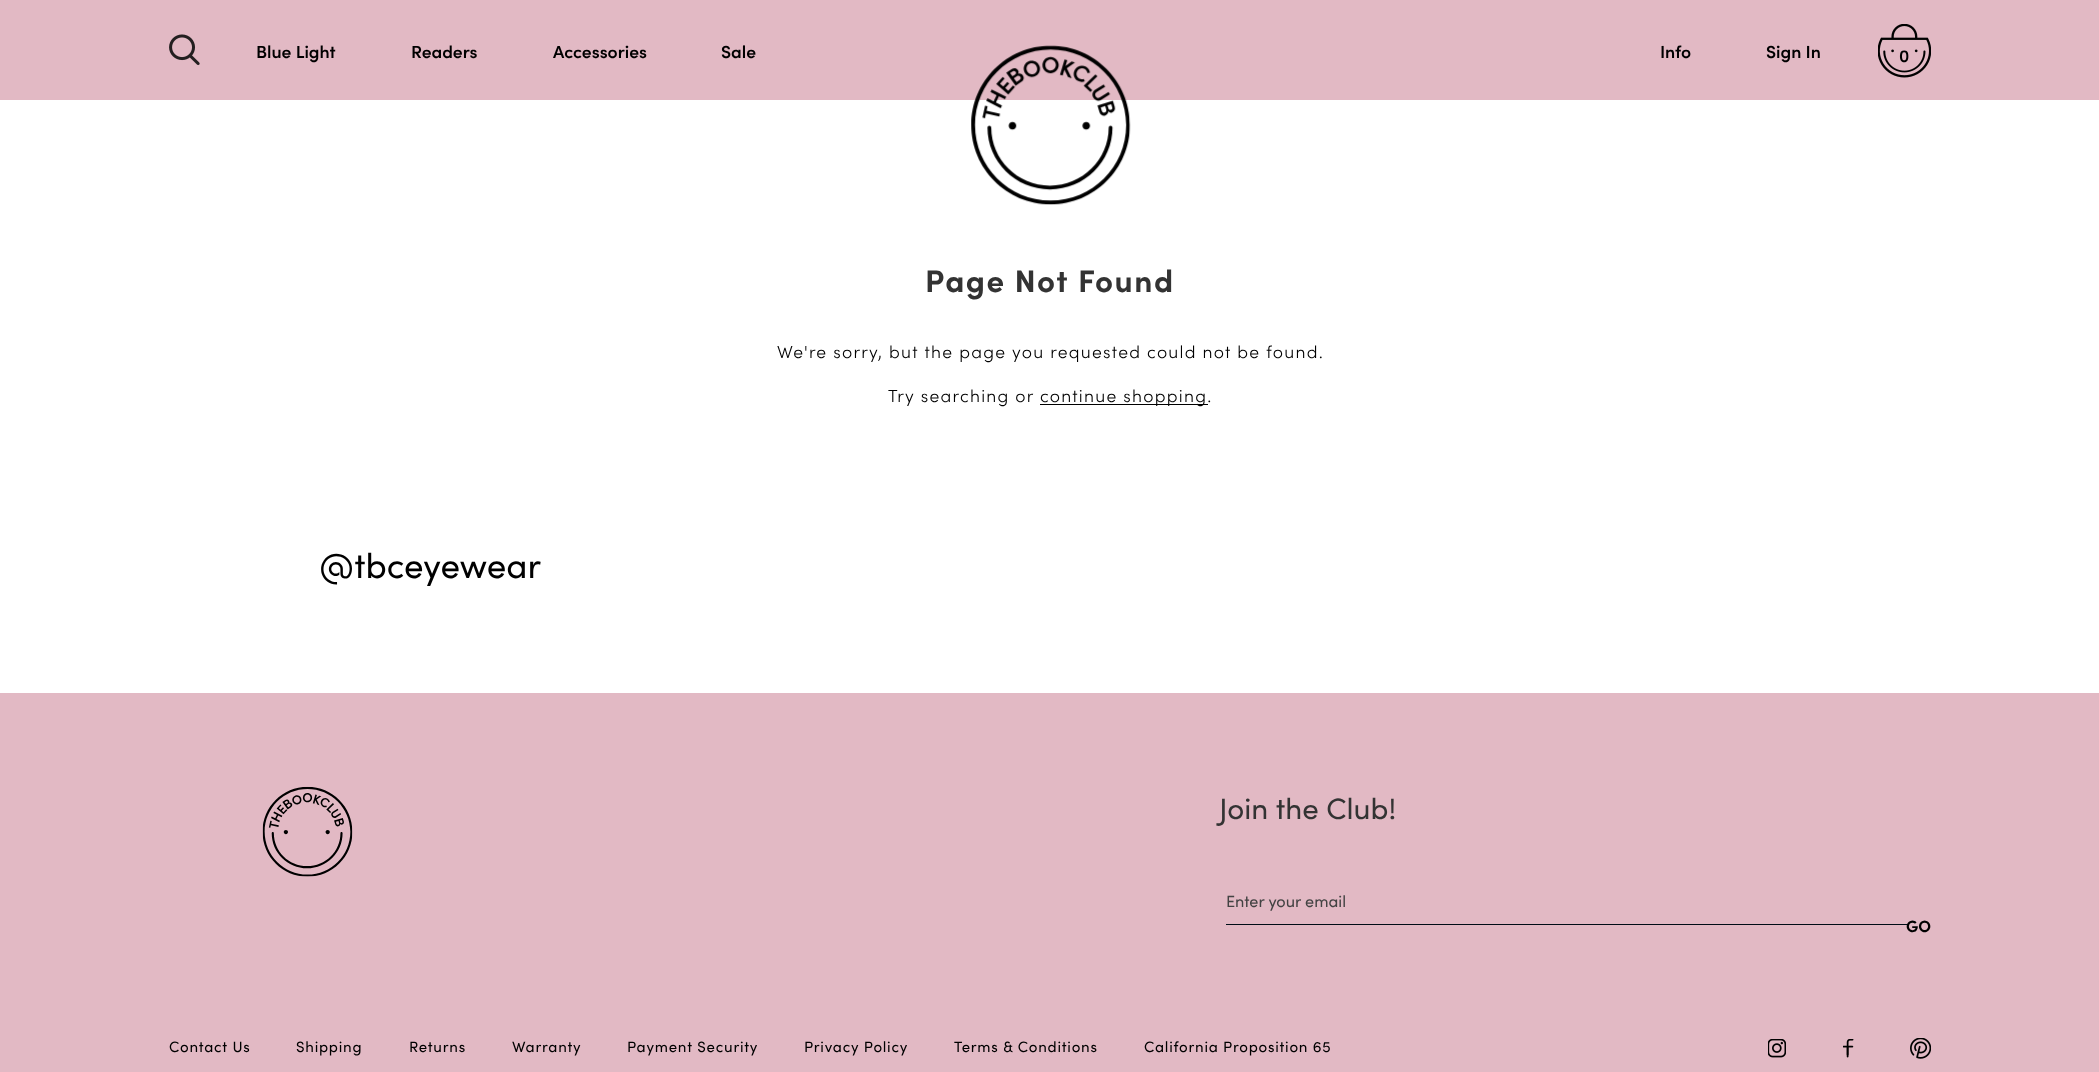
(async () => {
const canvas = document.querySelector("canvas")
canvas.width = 2099
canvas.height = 1072
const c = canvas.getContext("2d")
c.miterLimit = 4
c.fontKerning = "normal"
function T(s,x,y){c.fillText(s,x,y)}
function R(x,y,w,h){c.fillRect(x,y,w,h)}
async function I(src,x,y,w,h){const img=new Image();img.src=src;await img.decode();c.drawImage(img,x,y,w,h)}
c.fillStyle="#fff"
R(0,0,2099,1072)
c.fillStyle="#e2b9c4"
R(0,0,2099,100)
await I("1.png",169,34,31,32)
c.font="600 17.5px Sofia"
c.fillStyle="#000"
T("Blue Light",256,58)
T("Readers",411,58)
T("Accessories",553,58)
T("Sale",721,58)
await I("2.png",971,45,160,160)
T("Info",1660,58)
T("Sign In",1766,58)
await I("3.png",1878,24,53,54)
T("0",1899,62)
c.letterSpacing="1.5px"
c.font="bold 31.25px Sofia"
c.fillStyle="#333"
T("Page Not Found",925,292)
c.letterSpacing="1.25px"
c.font="300 17.5px Sofia"
c.fillStyle="#000"
T("We're sorry, but the page you requested could not be found.",777,358)
T("Try searching or",888,402)
R(1040,404,168,1)
T("continue shopping.",1040,402)
c.letterSpacing="0px"
c.font="35px Sofia"
T("@tbceyewear",319,578)
c.fillStyle="#e2b9c4"
R(0,693,2099,379)
await I("4.png",262,786,91,91)
c.font="29.5px Sofia"
c.fillStyle="#333"
T("Join the Club!",1219,819)
c.fillStyle="#000d17"
R(1226,924,683,1)
c.font="16.25px Sofia"
c.fillStyle="#434343"
T("Enter your email",1226,907)
c.font="bold 16.25px Sofia"
c.fillStyle="#000"
T("GO",1906,932)
c.letterSpacing="0.75px"
c.font="15px Sofia"
T("Contact Us",169,1052)
T("Shipping",296,1052)
T("Returns",409,1052)
T("Warranty",512,1052)
T("Payment Security",627,1052)
T("Privacy Policy",804,1052)
T("Terms & Conditions",954,1052)
T("California Proposition 65",1144,1052)
await I("5.png",1768,1039,18,19)
await I("6.png",1843,1039,11,19)
await I("7.png",1910,1038,21,21)
})()
